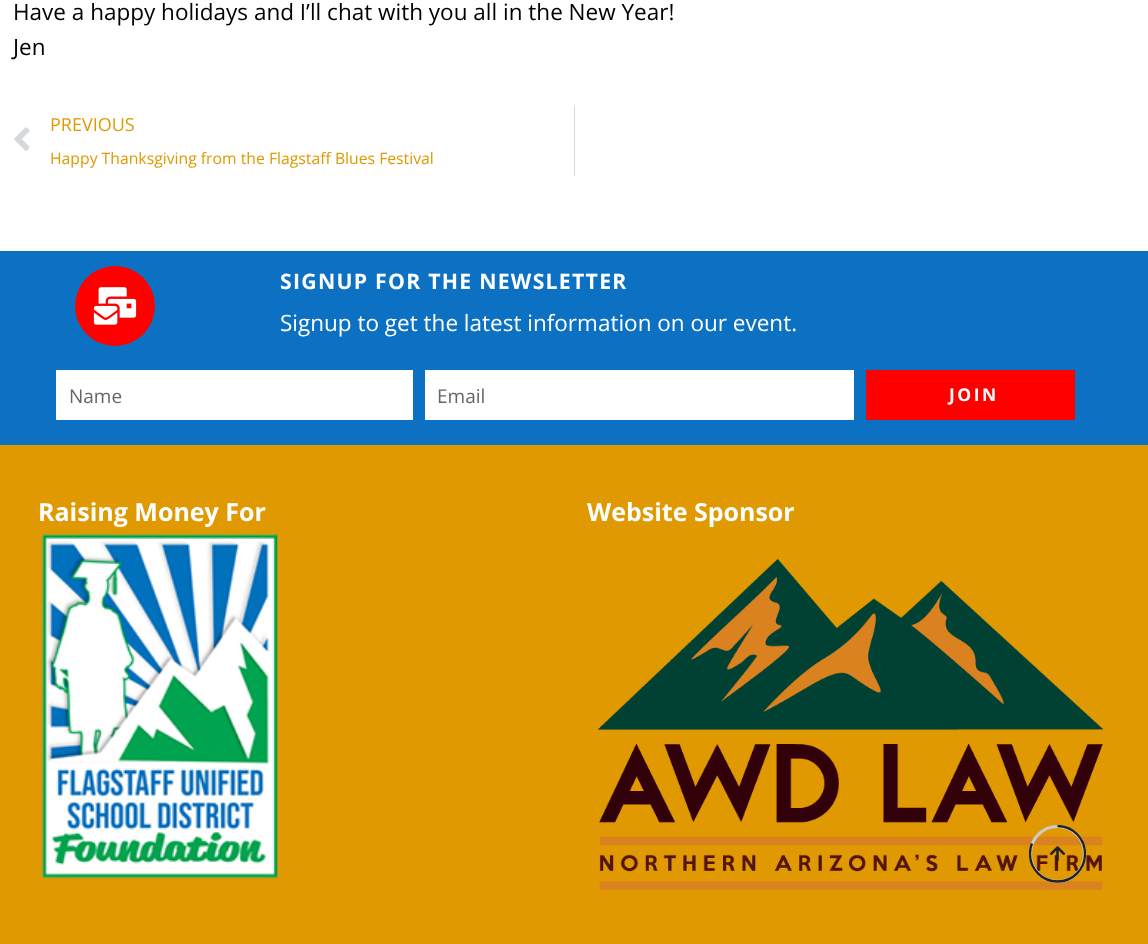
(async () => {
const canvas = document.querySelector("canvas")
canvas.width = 1148
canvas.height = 944
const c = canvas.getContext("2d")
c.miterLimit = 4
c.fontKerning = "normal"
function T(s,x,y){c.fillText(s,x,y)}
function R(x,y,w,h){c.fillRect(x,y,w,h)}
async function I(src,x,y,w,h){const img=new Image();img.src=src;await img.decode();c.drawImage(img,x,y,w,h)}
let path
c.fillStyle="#fff"
R(0,0,1148,944)
c.font="22.5px Open Sans"
c.fillStyle="#000"
T("Have a happy holidays and I’ll chat with you all in the New Year!",13,20)
T("Jen",13,55)
await I("1.png",14,127,16,24)
c.font="18px Open Sans"
c.fillStyle="#e09900"
T("PREVIOUS",50,131)
c.font="15.75px Open Sans"
T("Happy Thanksgiving from the Flagstaff Blues Festival",50,164)
c.fillStyle="#d5d8dc"
R(574,106,1,70)
c.fillStyle="#0c71c3"
R(0,251,1148,194)
c.fillStyle="#f00"
c.beginPath()
c.arc(115,306,40,0,7)
c.fill()
await I("2.png",93,287,44,38)
c.letterSpacing="1.25px"
c.font="bold 21.25px Open Sans"
c.fillStyle="#fff"
T("SIGNUP FOR THE NEWSLETTER",280,289)
c.letterSpacing="0px"
c.font="22.5px Open Sans"
T("Signup to get the latest information on our event.",280,331)
R(56,370,357,50)
c.font="19px Open Sans"
c.fillStyle="#666"
T("Name",69,403)
c.fillStyle="#fff"
R(425,370,429,50)
c.fillStyle="#666"
T("Email",437,403)
c.fillStyle="#f00"
R(866,370,209,50)
c.letterSpacing="2.5px"
c.font="bold 17.5px Open Sans"
c.fillStyle="#fff"
T("JOIN",949,401)
c.fillStyle="#e09900"
R(0,445,1148,499)
c.letterSpacing="0px"
c.font="bold 25px Open Sans"
c.fillStyle="#fff"
T("Raising Money For",38,521)
await I("3.png",41,534,238,345)
T("Website Sponsor",587,521)
await I("4.png",597,558,507,332)
c.beginPath()
c.roundRect(1030.5,826.5,54,55,27)
c.strokeStyle="#ccc"
c.lineWidth=3
c.stroke()
c.save()
c.beginPath()
c.rect(1029,825,57,58)
c.clip()
path = new Path2D("M1057.5 826c15.5 0 27.5 12.5 27.5 28c0 15-12 27.5-27.5 27.5c-15.5 0-27.5-12.5-27.5-27.5c0-4 .5-7.5 2-10.5")
c.strokeStyle="#1f2029"
c.lineWidth=2.3
c.stroke(path)
c.restore()
await I("5.png",1050,846,15,16)
})()
